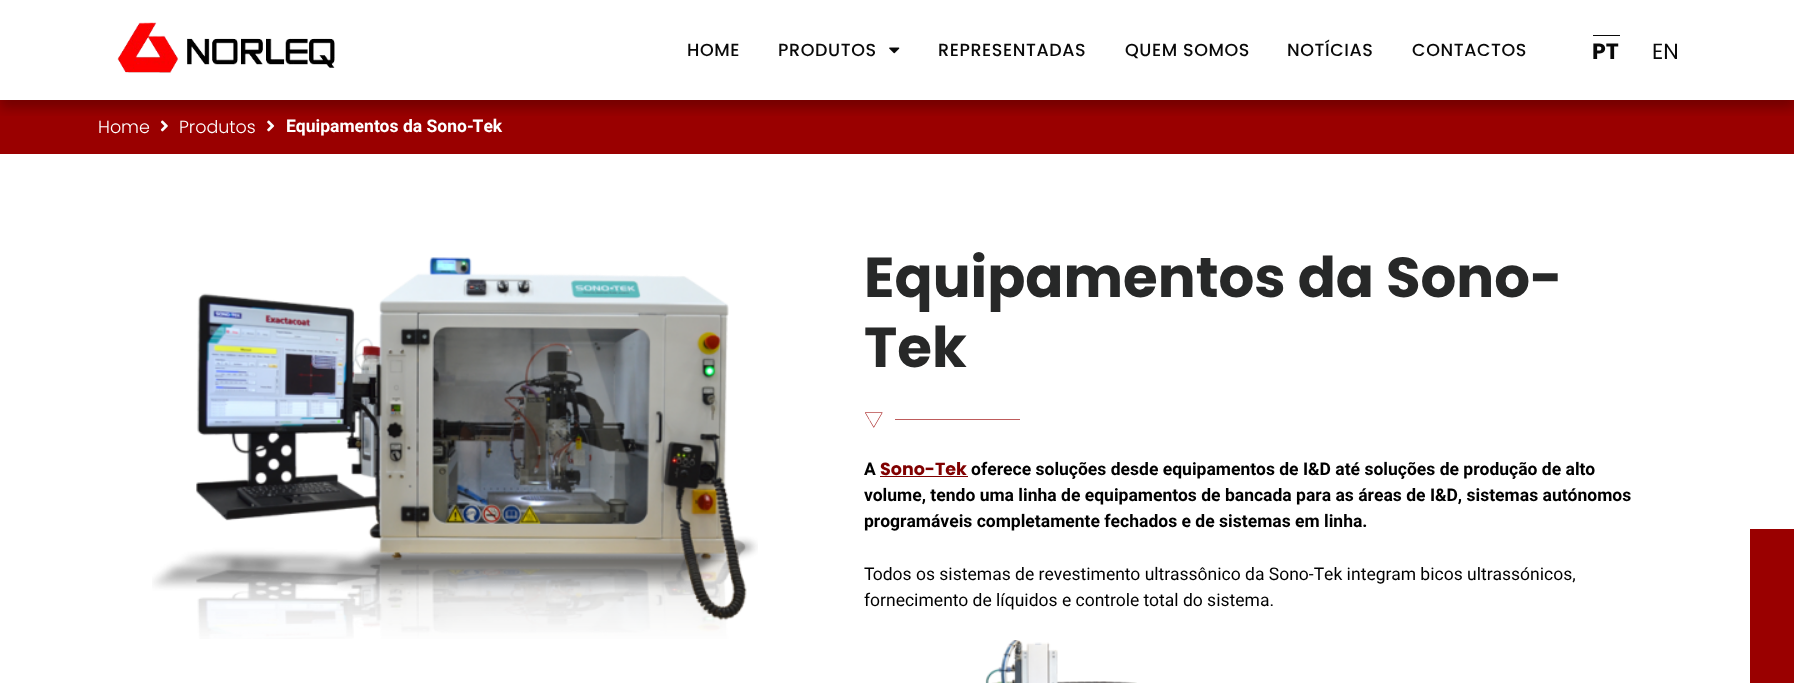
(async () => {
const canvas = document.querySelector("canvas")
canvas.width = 1794
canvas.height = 683
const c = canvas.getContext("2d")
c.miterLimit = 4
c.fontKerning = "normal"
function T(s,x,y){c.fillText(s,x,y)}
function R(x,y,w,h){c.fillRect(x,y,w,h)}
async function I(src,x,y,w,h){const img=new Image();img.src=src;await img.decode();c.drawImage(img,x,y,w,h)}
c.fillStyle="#fff"
R(0,0,1794,683)
c.fillStyle="#9a0000"
R(0,100,1794,54)
await I("3.png",160,120,8,12)
await I("4.png",267,120,8,12)
c.save()
c.beginPath()
c.rect(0,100,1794,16)
c.clip()
c.fillStyle="#00000040"
c.filter="blur(6px)"
c.beginPath()
c.rect(0,8,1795,100)
c.fill()
c.filter="none"
c.restore()
await I("1.png",117,22,218,51)
c.letterSpacing="0.6px"
c.font="500 17.5px Poppins"
c.fillStyle="#090909"
T("HOME",687,56)
T("PRODUTOS",778,56)
await I("2.png",889,47,11,7)
T("REPRESENTADAS",938,56)
T("QUEM SOMOS",1125,56)
T("NOTÍCIAS",1287,56)
T("CONTACTOS",1412,56)
c.letterSpacing="0px"
c.font="bold 22px Poppins"
T("PT",1592,59)
R(1593,35,27,1)
c.font="22px Poppins"
T("EN",1652,59)
c.font="300 17.5px Poppins"
c.fillStyle="#fff"
T("Home",98,133)
T("Produtos",179,133)
c.font="bold 17.5px Heebo"
T("Equipamentos da Sono-Tek",286,132)
await I("5.png",152,257,606,382)
c.font="bold 56.25px Poppins"
c.fillStyle="#272828"
T("Equipamentos da Sono-",864,297)
T("Tek",864,367)
await I("6.png",865,412,18,16)
c.fillStyle="#be5c5c"
R(895,419,125,1)
c.font="bold 17.5px Heebo"
c.fillStyle="#000"
T("A",864,475)
c.font="bold 17.5px Poppins"
c.fillStyle="#800000"
T("Sono-Tek",880,475)
R(880,476,88,1)
c.font="bold 17.5px Heebo"
c.fillStyle="#000"
T("oferece soluções desde equipamentos de I&D até soluções de produção de alto",971,475)
T("volume, tendo uma linha de equipamentos de bancada para as áreas de I&D, sistemas autónomos",864,501)
T("programáveis completamente fechados e de sistemas em linha.",864,527)
c.font="17.5px Heebo"
T("Todos os sistemas de revestimento ultrassônico da Sono-Tek integram bicos ultrassónicos,",864,580)
T("fornecimento de líquidos e controle total do sistema.",864,606)
await I("7.png",985,640,152,43)
c.fillStyle="#9a0000"
R(1750,529,44,154)
})()
